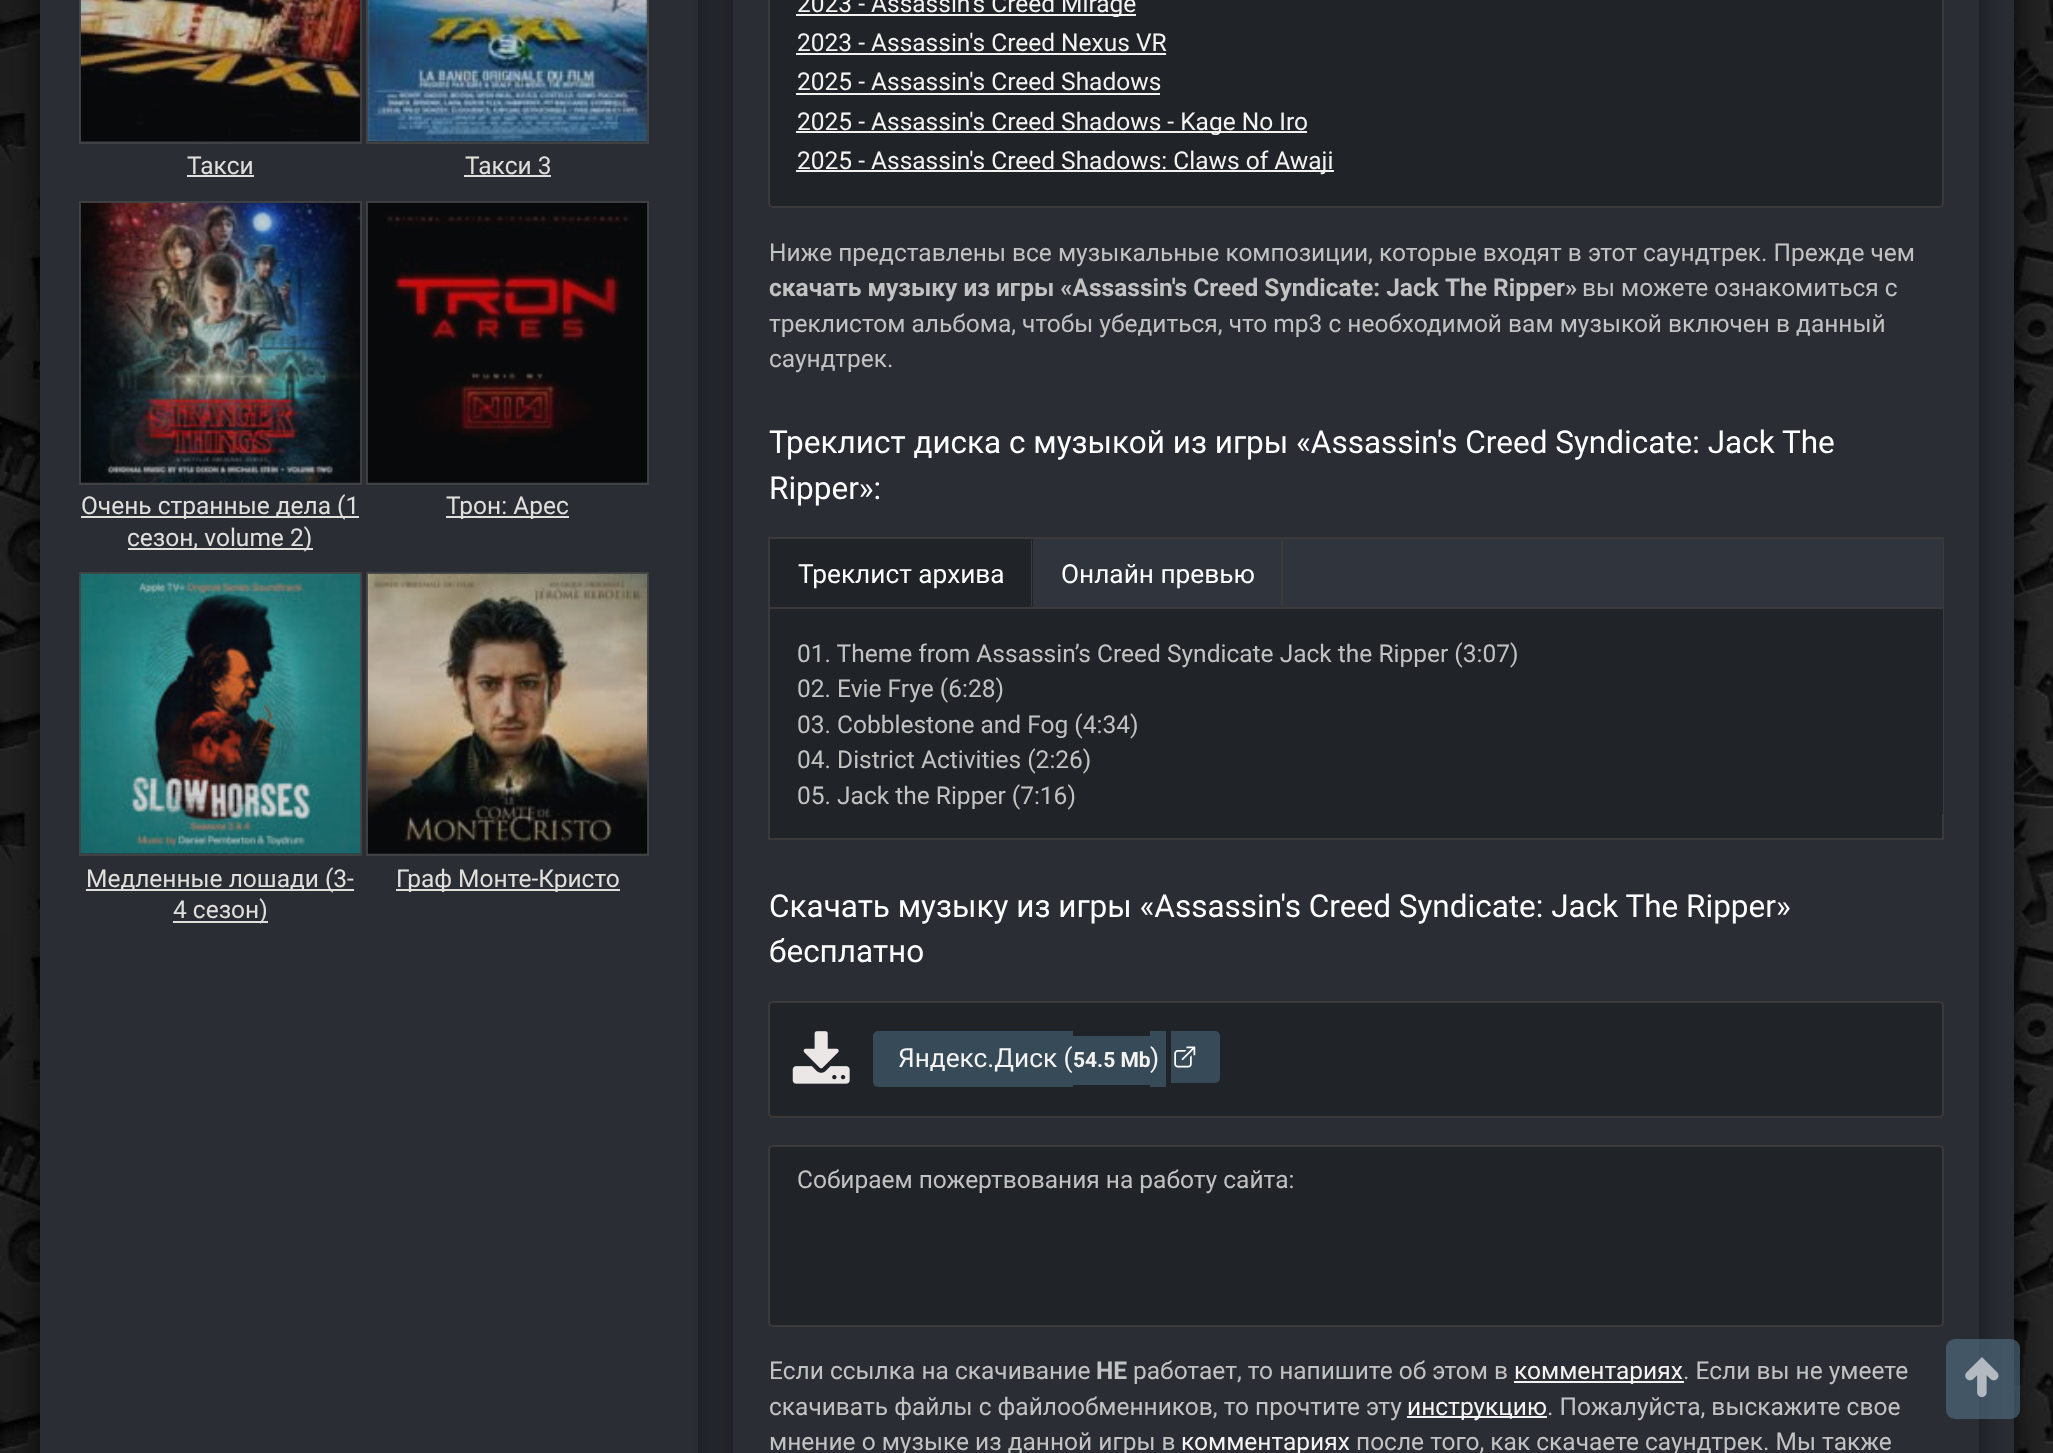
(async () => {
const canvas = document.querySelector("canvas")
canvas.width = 2053
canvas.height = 1453
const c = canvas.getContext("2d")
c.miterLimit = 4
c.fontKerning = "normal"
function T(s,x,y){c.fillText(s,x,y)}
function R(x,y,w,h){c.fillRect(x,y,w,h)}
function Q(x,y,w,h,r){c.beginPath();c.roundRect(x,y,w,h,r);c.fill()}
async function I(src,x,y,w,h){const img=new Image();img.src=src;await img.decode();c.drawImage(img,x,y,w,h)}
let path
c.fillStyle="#fff"
R(0,0,2053,1453)
await I("1.png",0,0,2053,1453)
c.fillStyle="#000000cc"
c.filter="blur(17.5px)"
c.beginPath()
c.rect(40,-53,1974,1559)
c.fill()
c.filter="none"
c.fillStyle="#2a2d34"
R(40,0,1974,1453)
c.save()
c.beginPath()
c.rect(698,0,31,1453)
c.clip()
c.fillStyle="#00000080"
c.filter="blur(17.5px)"
c.beginPath()
c.rect(110,-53,588,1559)
c.fill()
c.filter="none"
c.restore()
await I("2.png",80,0,281,142)
c.strokeStyle="#464646cc"
c.lineWidth=2
c.strokeRect(80,-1,281,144)
c.font="24.5px Roboto"
c.fillStyle="#e0dfdc"
T("Такси",187,174)
R(187,175,67,2)
await I("3.png",367,0,281,142)
c.strokeRect(367,-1,281,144)
T("Такси 3",465,174)
R(464,175,87,2)
await I("4.png",80,202,281,281)
c.strokeRect(80,202,281,282)
R(81,516,278,2)
T("Очень странные дела (1",81,514)
R(128,548,185,2)
T("сезон, volume 2)",127,546)
await I("5.png",367,202,281,281)
c.strokeRect(367,202,281,282)
R(446,516,123,2)
T("Трон: Арес",446,514)
await I("6.png",80,573,281,281)
c.strokeRect(80,573,281,282)
R(86,889,268,2)
T("Медленные лошади (3-",86,887)
R(173,921,95,2)
T("4 сезон)",173,918)
await I("7.png",367,573,281,281)
c.strokeRect(367,573,281,282)
R(396,889,224,2)
T("Граф Монте-Кристо",396,887)
c.fillStyle="#00000080"
c.filter="blur(17.5px)"
c.beginPath()
c.roundRect(733,-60,1246,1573,7)
c.fill()
c.filter="none"
c.fillStyle="#2a2d34"
R(733,0,1246,1453)
c.fillStyle="#202328"
c.beginPath()
c.roundRect(769,-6,1174,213,4)
c.fill()
c.strokeStyle="#3b3939"
c.stroke()
c.fillStyle="#f4f3f1"
R(796,14,340,2)
T("2023 - Assassin's Creed Mirage",797,12)
T("2023 - Assassin's Creed Nexus VR",797,51)
R(796,53,370,2)
T("2025 - Assassin's Creed Shadows",797,90)
R(796,93,364,2)
R(796,131,511,2)
T("2025 - Assassin's Creed Shadows - Kage No Iro",797,130)
R(796,170,538,2)
T("2025 - Assassin's Creed Shadows: Claws of Awaji",797,169)
c.fillStyle="#c2c2c2"
T("Ниже представлены все музыкальные композиции, которые входят в этот саундтрек. Прежде чем",769,261)
c.font="bold 24.5px Roboto"
T("скачать музыку из игры «Assassin's Creed Syndicate: Jack The Ripper»",769,296)
c.font="24.5px Roboto"
T("вы можете ознакомиться с",1582,296)
T("треклистом альбома, чтобы убедиться, что mp3 с необходимой вам музыкой включен в данный",769,332)
T("саундтрек.",769,367)
c.font="31.5px Roboto"
c.fillStyle="#fff"
T("Треклист диска с музыкой из игры «Assassin's Creed Syndicate: Jack The",769,453)
T("Ripper»:",769,499)
c.fillStyle="#202328"
R(770,814,1172,24)
c.strokeRect(769,538,1174,301)
c.fillStyle="#30353d"
R(1033,539,910,68)
c.fillStyle="#3b3939"
R(770,607,1173,2)
c.fillStyle="#202328"
R(770,539,263,68)
c.fillStyle="#3b3939"
path = new Path2D("M1032 539v68l-1-1v-65z")
c.fill(path)
c.font="26.25px Roboto"
c.fillStyle="#fff"
T("Треклист архива",798,583)
c.fillStyle="#3b3939"
path = new Path2D("M1283 539v68l-2-1v-65z")
c.fill(path)
c.fillStyle="#fff"
T("Онлайн превью",1061,583)
c.fillStyle="#202328"
R(770,609,1173,205)
c.font="24.5px Roboto"
c.fillStyle="#c2c2c2"
T("01. Theme from Assassin’s Creed Syndicate Jack the Ripper (3:07)",797,662)
T("02. Evie Frye (6:28)",797,697)
T("03. Cobblestone and Fog (4:34)",797,733)
T("04. District Activities (2:26)",797,768)
T("05. Jack the Ripper (7:16)",797,804)
c.font="31.5px Roboto"
c.fillStyle="#fff"
T("Скачать музыку из игры «Assassin's Creed Syndicate: Jack The Ripper»",769,917)
T("бесплатно",769,962)
c.fillStyle="#202328"
c.beginPath()
c.roundRect(769,1002,1174,115,4)
c.fill()
c.stroke()
await I("8.png",792,1031,58,53)
c.fillStyle="#364b57"
c.beginPath()
c.roundRect(873,1031,200,56,[5,0,0,5])
c.fill()
c.font="26.25px Roboto"
c.fillStyle="#f4f3f1"
T("Яндекс.Диск (",898,1067)
c.fillStyle="#364b57"
R(1073,1036,77,49)
c.font="bold 21px Roboto"
c.fillStyle="#f4f3f1"
T("54.5 Mb",1073,1067)
c.fillStyle="#364b57"
R(1150,1031,16,56)
c.font="26.25px Roboto"
c.fillStyle="#f4f3f1"
T(")",1150,1067)
c.fillStyle="#364b57"
c.beginPath()
c.roundRect(1171,1031,49,52,[0,5,5,0])
c.fill()
await I("9.png",1174,1046,22,22)
c.fillStyle="#202328"
c.beginPath()
c.roundRect(769,1146,1174,180,4)
c.fill()
c.stroke()
c.font="24.5px Roboto"
c.fillStyle="#c2c2c2"
T("Собираем пожертвования на работу сайта:",797,1188)
T("Если ссылка на скачивание",769,1379)
c.font="bold 24.5px Roboto"
T("НЕ",1096,1379)
c.font="24.5px Roboto"
T("работает, то напишите об этом в",1133,1379)
c.fillStyle="#f4f3f1"
R(1514,1381,170,2)
T("комментариях",1514,1379)
c.fillStyle="#c2c2c2"
T(". Если вы не умеете",1683,1379)
T("скачивать файлы с файлообменников, то прочтите эту",769,1415)
c.fillStyle="#f4f3f1"
R(1407,1416,140,2)
T("инструкцию",1407,1415)
c.fillStyle="#c2c2c2"
T(". Пожалуйста, выскажите свое",1547,1415)
T("мнение о музыке из данной игры в",769,1450)
c.fillStyle="#f4f3f1"
T("комментариях",1181,1450)
c.fillStyle="#c2c2c2"
T("после того, как скачаете саундтрек. Мы также",1356,1450)
c.fillStyle="#54728799"
Q(1946,1339,74,80,9)
await I("10.png",1965,1357,34,41)
})()
